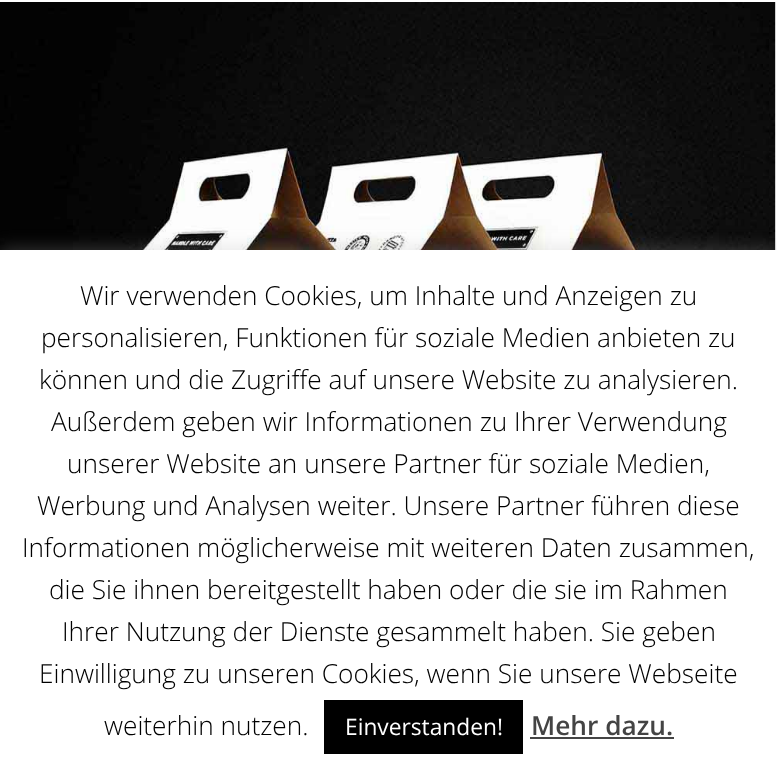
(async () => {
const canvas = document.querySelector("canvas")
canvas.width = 777
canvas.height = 774
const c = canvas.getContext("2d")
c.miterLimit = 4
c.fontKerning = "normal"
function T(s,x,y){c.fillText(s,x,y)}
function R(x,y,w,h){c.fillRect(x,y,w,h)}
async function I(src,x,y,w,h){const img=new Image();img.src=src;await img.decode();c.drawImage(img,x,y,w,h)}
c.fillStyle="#fff"
R(0,0,777,774)
await I("1.png",0,2,776,248)
c.fillStyle="#acabab4d"
c.filter="blur(9px)"
c.beginPath()
c.rect(0,249,777,525)
c.fill()
c.filter="none"
c.fillStyle="#fff"
R(0,250,777,524)
c.font="300 26.25px Open Sans"
c.fillStyle="#000"
T("Wir verwenden Cookies, um Inhalte und Anzeigen zu",80,305)
T("personalisieren, Funktionen für soziale Medien anbieten zu",41,347)
T("können und die Zugriffe auf unsere Website zu analysieren.",39,389)
T("Außerdem geben wir Informationen zu Ihrer Verwendung",51,431)
T("unserer Website an unsere Partner für soziale Medien,",67,473)
T("Werbung und Analysen weiter. Unsere Partner führen diese",37,515)
T("Informationen möglicherweise mit weiteren Daten zusammen,",22,557)
T("die Sie ihnen bereitgestellt haben oder die sie im Rahmen",49,599)
T("Ihrer Nutzung der Dienste gesammelt haben. Sie geben",62,641)
T("Einwilligung zu unseren Cookies, wenn Sie unsere Webseite",39,683)
T("weiterhin nutzen.",104,735)
R(324,700,199,54)
c.font="22.75px Open Sans"
c.fillStyle="#fff"
T("Einverstanden!",345,735)
c.font="600 26.25px Open Sans"
c.fillStyle="#444"
T("Mehr dazu.",531,735)
R(530,737,144,2)
})()
